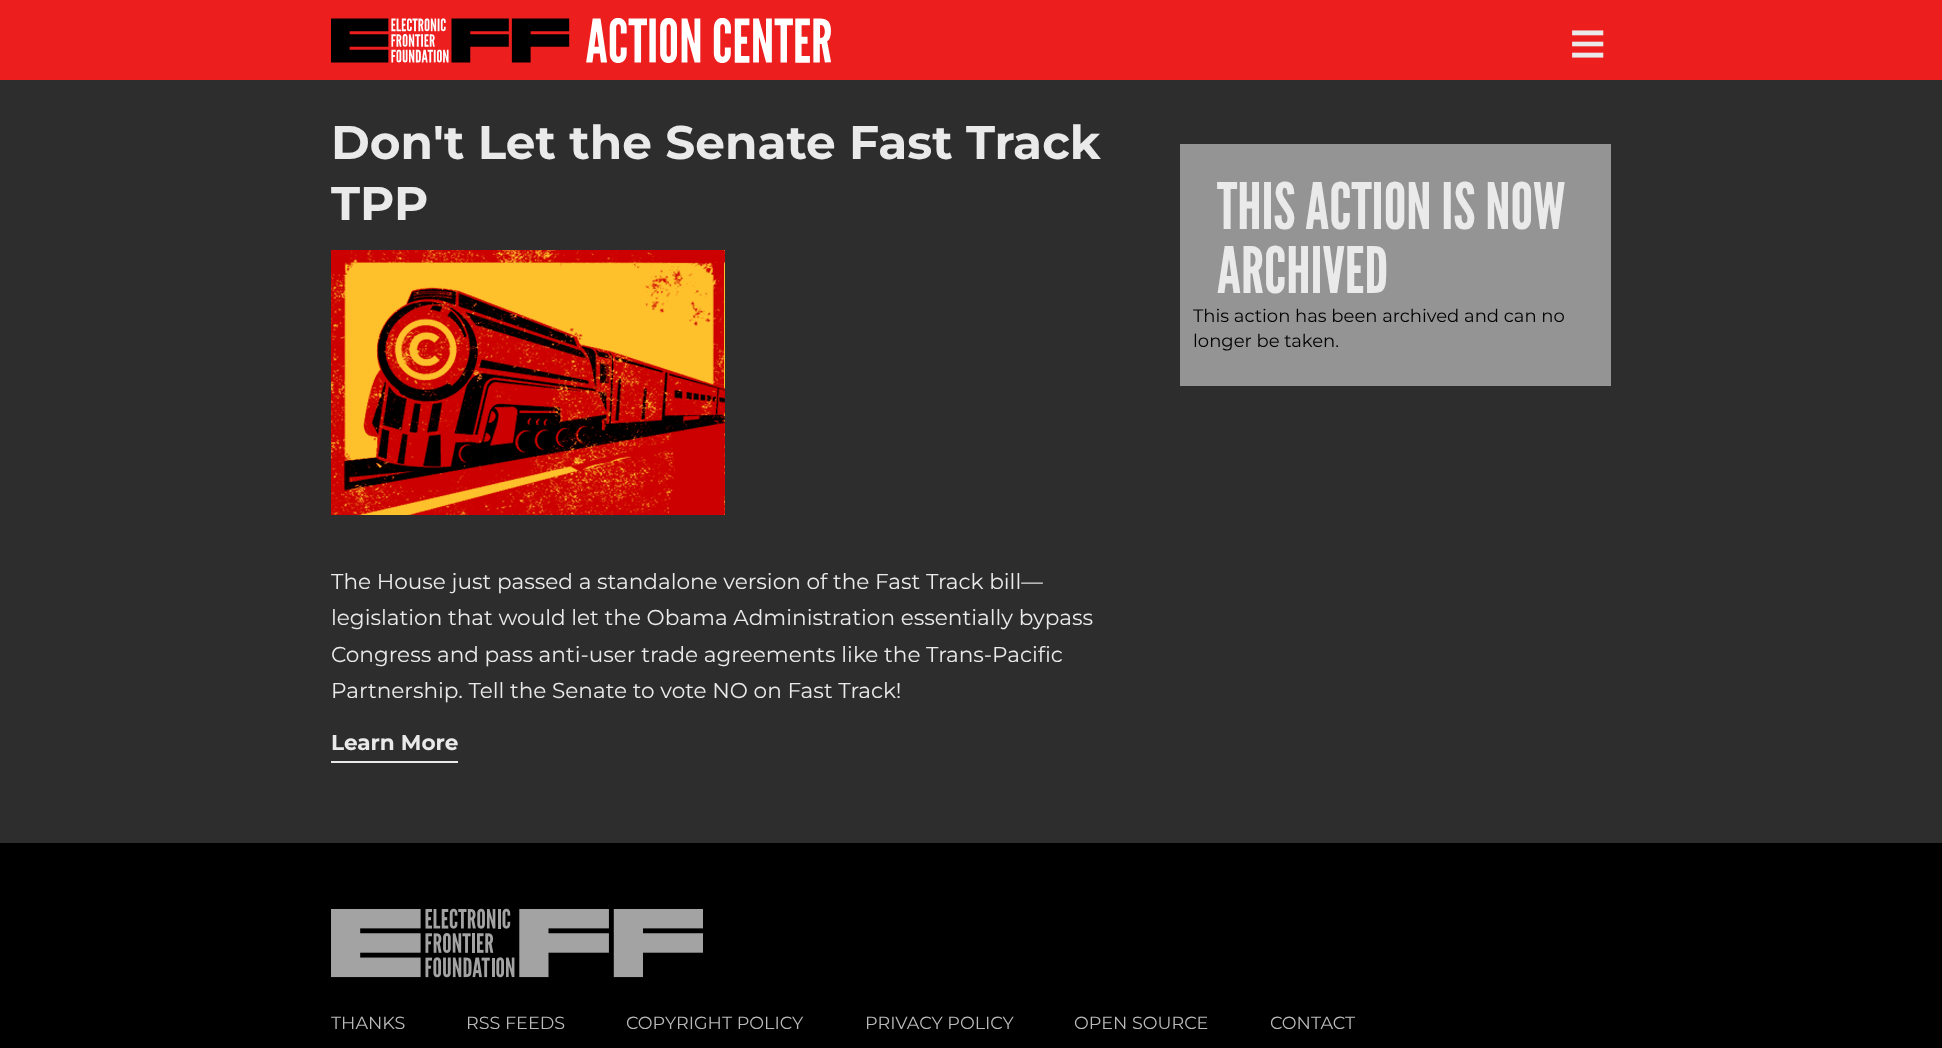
(async () => {
const canvas = document.querySelector("canvas")
canvas.width = 1942
canvas.height = 1048
const c = canvas.getContext("2d")
c.miterLimit = 4
c.fontKerning = "normal"
function T(s,x,y){c.fillText(s,x,y)}
function R(x,y,w,h){c.fillRect(x,y,w,h)}
async function I(src,x,y,w,h){const img=new Image();img.src=src;await img.decode();c.drawImage(img,x,y,w,h)}
c.fillStyle="#2d2d2d"
R(0,0,1942,1048)
c.fillStyle="#ec1e1e"
R(0,0,1942,80)
await I("1.png",331,18,500,45)
c.font="64px Liberation Sans"
c.fillStyle="#eaeaea"
T("≡",1569,65)
c.font="bold 47px Montserrat"
T("Don't Let the Senate Fast Track",331,159)
T("TPP",331,220)
await I("2.png",331,250,394,265)
c.font="21.6px Montserrat"
T("The House just passed a standalone version of the Fast Track bill—",331,589)
T("legislation that would let the Obama Administration essentially bypass",331,625)
T("Congress and pass anti-user trade agreements like the Trans-Pacific",331,662)
T("Partnership. Tell the Senate to vote NO on Fast Track!",331,698)
R(331,761,127,2)
c.font="bold 21.6px Montserrat"
T("Learn More",331,750)
c.fillStyle="#949494"
R(1180,144,431,242)
c.font="64px League Gothic"
c.fillStyle="#eaeaea"
T("THIS ACTION IS NOW",1217,229)
T("ARCHIVED",1217,293)
c.font="18px Montserrat"
c.fillStyle="#000"
T("This action has been archived and can no",1193,322)
T("longer be taken.",1193,347)
R(0,843,1942,205)
await I("3.png",331,908,372,70)
c.font="17.6px Montserrat"
c.fillStyle="#bababa"
T("THANKS",331,1029)
T("RSS FEEDS",466,1029)
T("COPYRIGHT POLICY",626,1029)
T("PRIVACY POLICY",865,1029)
T("OPEN SOURCE",1074,1029)
T("CONTACT",1270,1029)
})()
